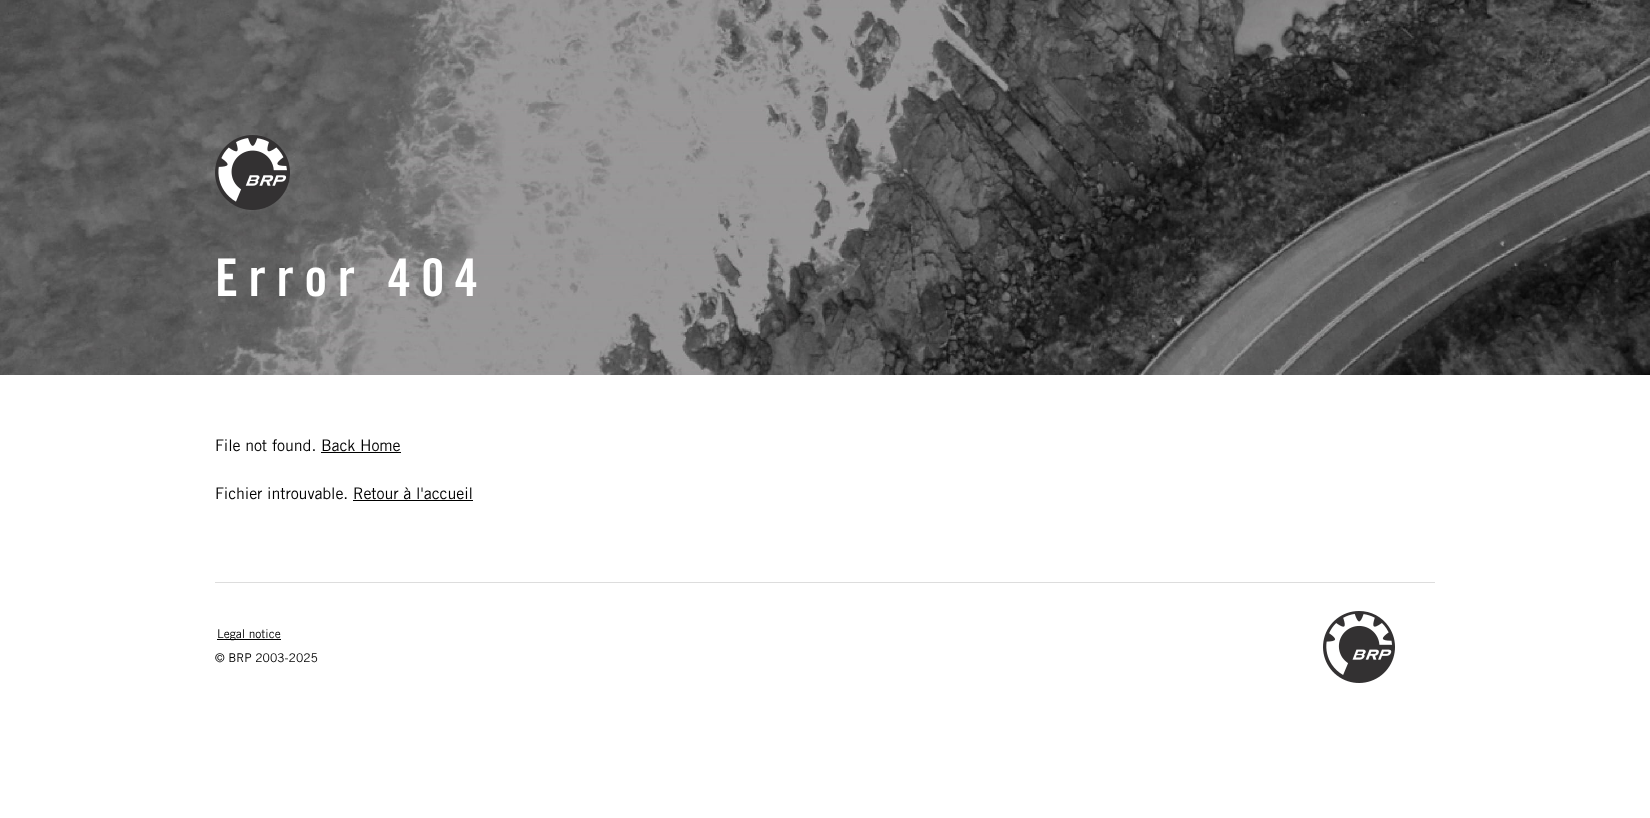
(async () => {
const canvas = document.querySelector("canvas")
canvas.width = 1650
canvas.height = 818
const c = canvas.getContext("2d")
c.miterLimit = 4
c.fontKerning = "normal"
function T(s,x,y){c.fillText(s,x,y)}
function R(x,y,w,h){c.fillRect(x,y,w,h)}
async function I(src,x,y,w,h){const img=new Image();img.src=src;await img.decode();c.drawImage(img,x,y,w,h)}
c.fillStyle="#fff"
R(0,0,1650,818)
await I("1.png",0,0,1650,375)
await I("2.png",215,135,75,75)
c.letterSpacing="10.5px"
c.font="bold 52px Trade Gothic"
T("Error 404",215,296)
c.letterSpacing="-0.1px"
c.font="16px Trade Gothic"
c.fillStyle="#000"
T("File not found. Back Home",215,451)
R(321,452,80,1)
T("Fichier introuvable. Retour à l'accueil",215,499)
R(353,500,120,1)
c.fillStyle="#ddd"
R(215,582,1220,1)
c.fillStyle="#000"
R(217,639,64,1)
c.letterSpacing="0px"
c.font="12px Trade Gothic"
T("Legal notice",217,638)
T("© BRP 2003-2025",215,662)
await I("3.png",1323,611,72,72)
})()
